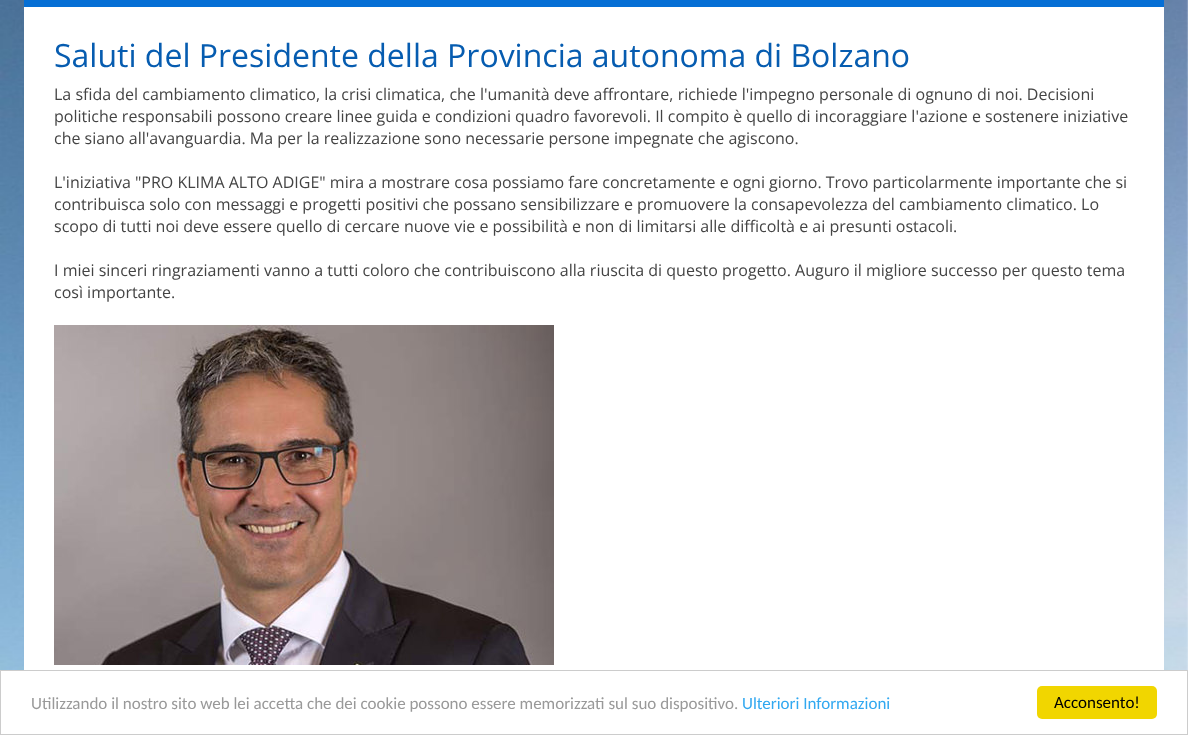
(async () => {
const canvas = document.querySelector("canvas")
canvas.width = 1188
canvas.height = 735
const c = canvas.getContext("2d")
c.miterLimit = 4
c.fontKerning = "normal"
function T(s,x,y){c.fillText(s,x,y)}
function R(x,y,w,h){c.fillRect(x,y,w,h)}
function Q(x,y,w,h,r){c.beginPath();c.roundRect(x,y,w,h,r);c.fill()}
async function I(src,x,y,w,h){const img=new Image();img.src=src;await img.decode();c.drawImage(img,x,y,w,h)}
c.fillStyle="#fff"
R(0,0,1188,735)
await I("1.png",0,0,1188,670)
c.fillStyle="#056fd5"
R(24,0,1140,7)
c.fillStyle="#fff"
R(24,7,1140,663)
c.font="32px Open Sans"
c.fillStyle="#065cb0"
T("Saluti del Presidente della Provincia autonoma di Bolzano",54,67)
c.font="16px Open Sans"
c.fillStyle="#444"
T("La sfida del cambiamento climatico, la crisi climatica, che l'umanità deve affrontare, richiede l'impegno personale di ognuno di noi. Decisioni",54,100)
T("politiche responsabili possono creare linee guida e condizioni quadro favorevoli. Il compito è quello di incoraggiare l'azione e sostenere iniziative",54,122)
T("che siano all'avanguardia. Ma per la realizzazione sono necessarie persone impegnate che agiscono.",54,144)
T("L'iniziativa \"PRO KLIMA ALTO ADIGE\" mira a mostrare cosa possiamo fare concretamente e ogni giorno. Trovo particolarmente importante che si",54,188)
T("contribuisca solo con messaggi e progetti positivi che possano sensibilizzare e promuovere la consapevolezza del cambiamento climatico. Lo",54,210)
T("scopo di tutti noi deve essere quello di cercare nuove vie e possibilità e non di limitarsi alle difficoltà e ai presunti ostacoli.",54,232)
T("I miei sinceri ringraziamenti vanno a tutti coloro che contribuiscono alla riuscita di questo progetto. Auguro il migliore successo per questo tema",54,276)
T("così importante.",54,298)
await I("2.png",54,325,500,340)
c.strokeStyle="#ccc"
c.strokeRect(.5,670.5,1187,64)
c.font="17px Carlito"
c.fillStyle="#999"
T("Utilizzando il nostro sito web lei accetta che dei cookie possono essere memorizzati sul suo dispositivo.",31,709)
c.fillStyle="#31a8f0"
T("Ulteriori Informazioni",742,709)
c.fillStyle="#f1d600"
Q(1037,686,120,33,5)
c.fillStyle="#000"
T("Acconsento!",1054,708)
})()
